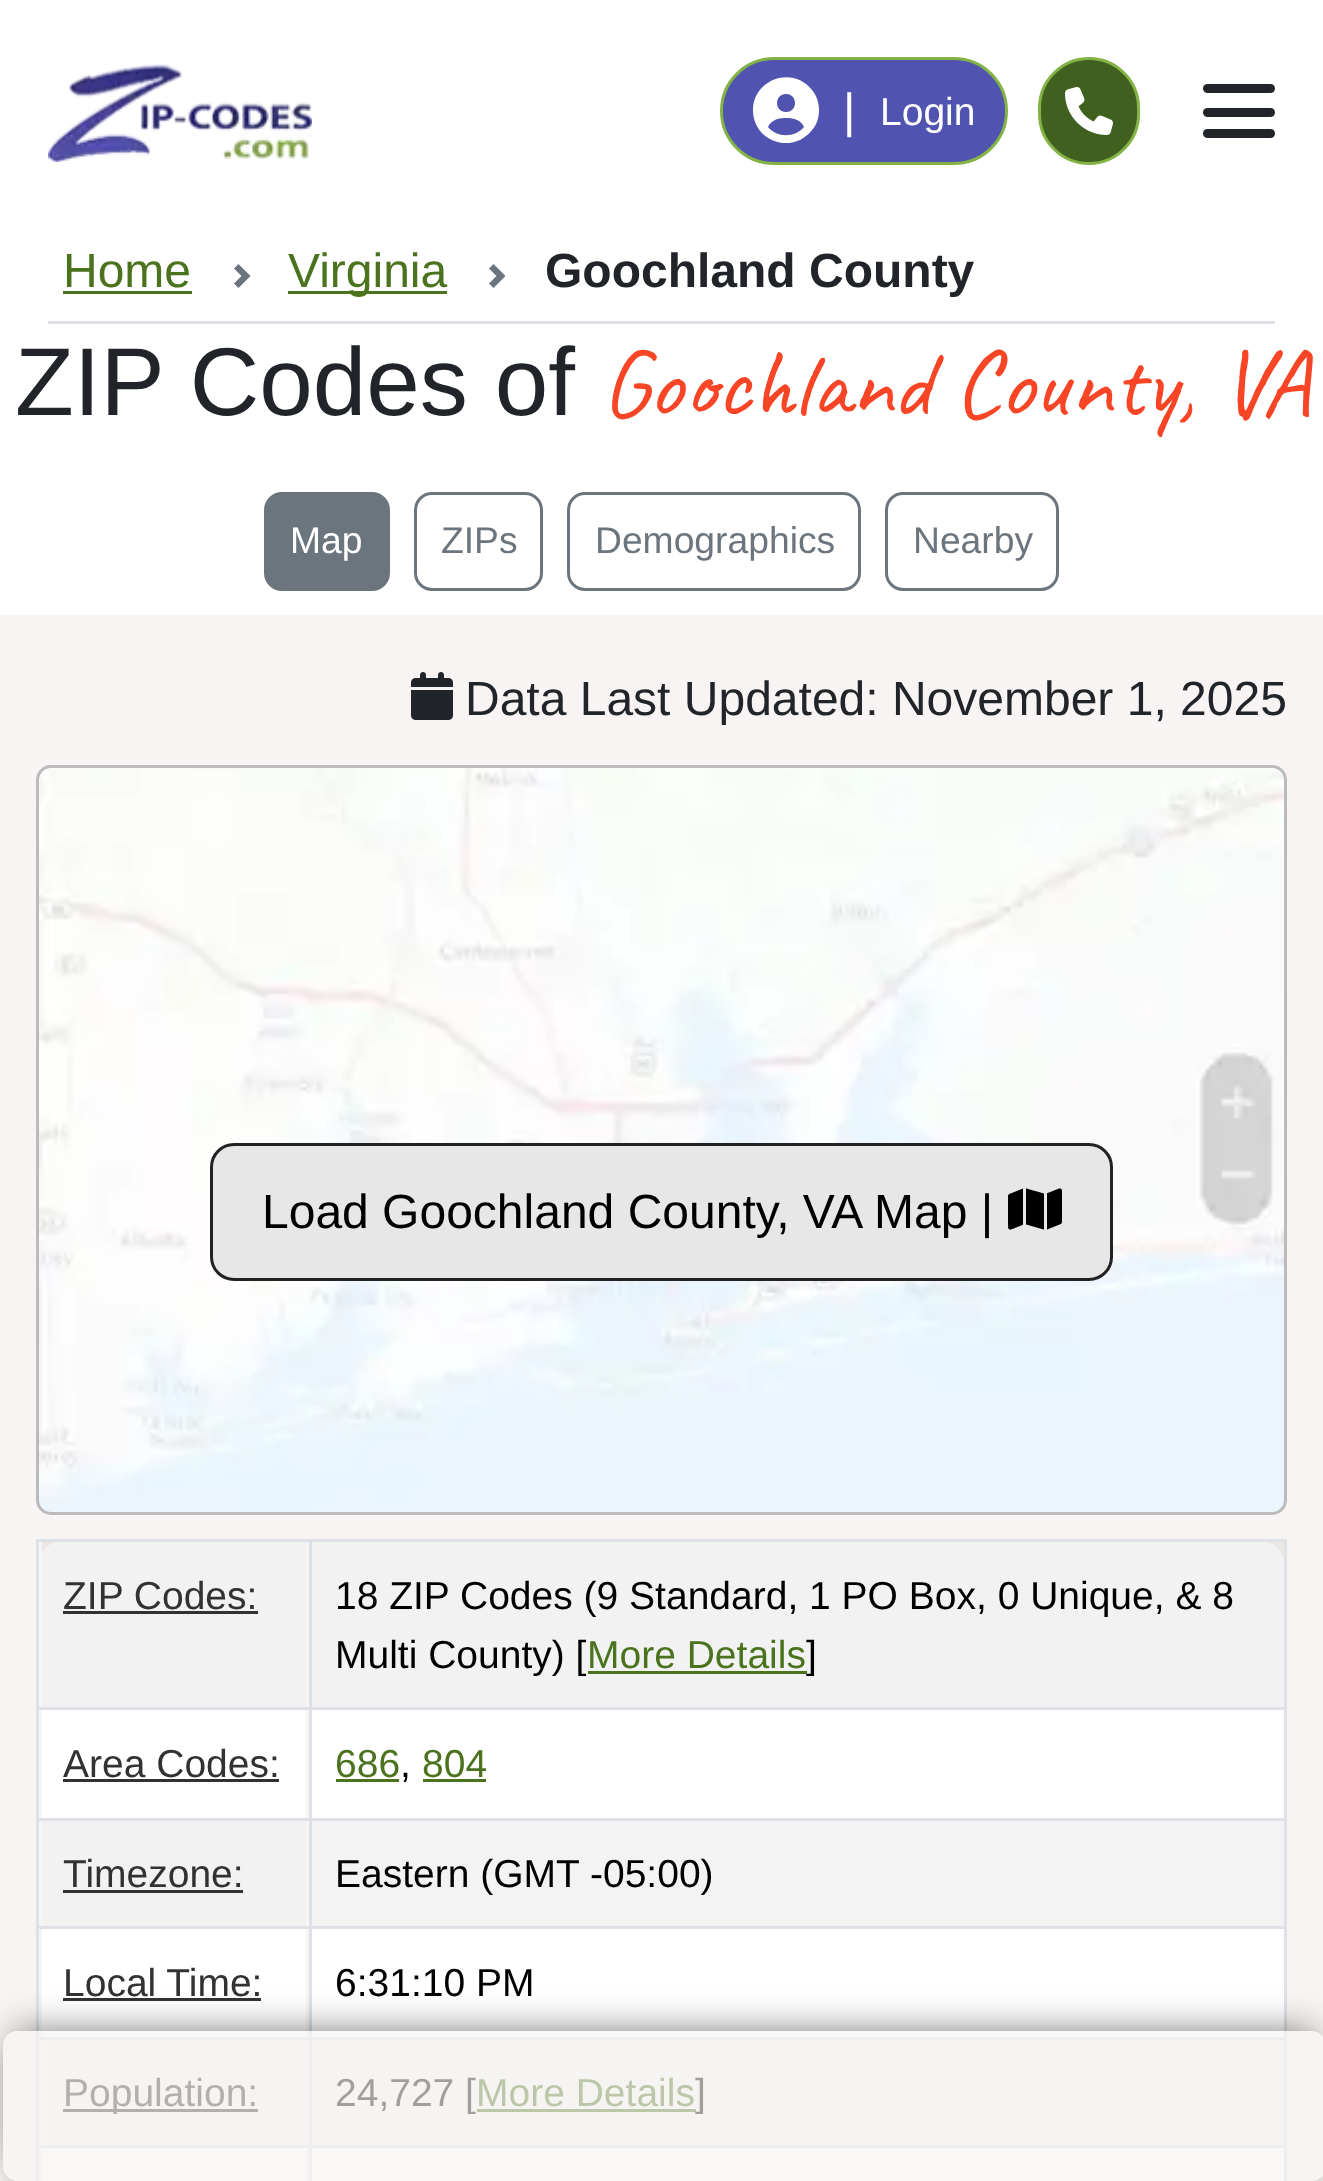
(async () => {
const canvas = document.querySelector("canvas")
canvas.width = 1323
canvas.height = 2181
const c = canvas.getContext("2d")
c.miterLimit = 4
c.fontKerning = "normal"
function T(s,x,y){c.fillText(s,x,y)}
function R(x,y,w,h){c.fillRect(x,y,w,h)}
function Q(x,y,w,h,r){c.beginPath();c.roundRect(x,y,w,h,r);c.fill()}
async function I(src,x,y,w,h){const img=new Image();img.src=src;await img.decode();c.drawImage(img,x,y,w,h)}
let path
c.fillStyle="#fff"
R(0,0,1323,2181)
await I("1.png",48,64,264,98)
c.fillStyle="#5053b0"
c.beginPath()
c.roundRect(721.5,58.5,285,105,52.5)
c.fill()
c.strokeStyle="#83b345"
c.lineWidth=3
c.stroke()
c.fillStyle="#fff"
path = new Path2D("M804 127c-3-7-10-9-17-9c-8 0-15 1-19 9c9 11 27 11 36 0zm-51-17c0-31 40-45 59-20c5 6 7 13 7 20c0 7-2 15-7 20c-19 25-59 12-59-20zm33 2c12 0 12-18 0-18c-12 0-12 18 0 18z")
c.fill(path)
c.font="48px Liberation Sans"
T("|",843,127)
c.font="39px Liberation Sans"
T("Login",880,125)
c.fillStyle="#406020"
c.beginPath()
c.roundRect(1039.5,58.5,99,105,49.5)
c.fill()
c.stroke()
await I("2.png",1065,87,48,48)
c.fillStyle="#212529"
Q(1203,84,72,9,4.5)
Q(1203,108,72,9,4.5)
Q(1203,129,72,9,4.5)
c.fillStyle="#dee2e6"
R(48,321,1227,3)
c.font="48px Liberation Sans"
c.fillStyle="#4b721d"
T("Home",63,287)
R(63,291,129,3)
await I("3.png",234,264,17,24)
R(288,291,159,3)
T("Virginia",288,287)
await I("3.png",489,264,17,24)
c.font="bold 48px Liberation Sans"
c.fillStyle="#212529"
T("Goochland County",545,287)
c.font="96.25px Liberation Sans"
T("ZIP Codes of",15,415)
c.font="96.25px Caveat"
c.fillStyle="#f84525"
T("Goochland County, VA",601,415)
c.fillStyle="#6c757d"
c.beginPath()
c.roundRect(265.5,493.5,123,96,16.5)
c.fill()
c.strokeStyle="#6c757d"
c.stroke()
c.font="37.25px Liberation Sans"
c.fillStyle="#fff"
T("Map",290,553)
c.beginPath()
c.roundRect(415.5,493.5,126,96,16.5)
c.stroke()
c.fillStyle="#6c757d"
T("ZIPs",441,553)
c.beginPath()
c.roundRect(568.5,493.5,291,96,16.5)
c.stroke()
T("Demographics",595,553)
c.beginPath()
c.roundRect(886.5,493.5,171,96,16.5)
c.stroke()
T("Nearby",913,553)
c.fillStyle="#f8f4f3"
R(0,615,1323,1566)
await I("4.png",411,672,42,48)
c.font="48px Liberation Sans"
c.fillStyle="#212529"
T("Data Last Updated: November 1, 2025",465,715)
await I("5.png",39,765,1245,750)
c.beginPath()
c.roundRect(37.5,766.5,1248,747,13.5)
c.strokeStyle="#bbb"
c.stroke()
c.fillStyle="#e7e7e7"
c.beginPath()
c.roundRect(211.5,1144.5,900,135,22.5)
c.fill()
c.strokeStyle="#222"
c.stroke()
c.fillStyle="#000"
T("Load Goochland County, VA Map |",262,1228)
await I("6.png",1008,1188,54,42)
c.fillStyle="#dee2e6"
R(36,1539,1251,3)
R(1284,1539,3,642)
R(36,1539,3,642)
R(39,2145,1245,3)
c.fillStyle="#fff"
R(42,2148,264,33)
R(312,2148,972,33)
c.beginPath()
c.roundRect(312,1542,972,168,[0,21,0,0])
c.fill()
c.fillStyle="#dee2e6"
R(39,1707,1245,3)
R(39,1818,1245,3)
R(39,1926,1245,3)
R(39,2037,1245,3)
R(309,1542,3,639)
c.save()
c.beginPath()
c.roundRect(39,1542,1245,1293,21)
c.clip()
c.fillStyle="#fff"
R(42,1542,264,165)
c.restore()
c.fillStyle="#0000000d"
R(42,1542,264,165)
c.font="39px Liberation Sans"
c.fillStyle="#323232"
T("ZIP Codes:",63,1609)
R(63,1611,195,3)
c.fillStyle="#0000000d"
R(312,1542,972,165)
c.fillStyle="#000"
T("18 ZIP Codes (9 Standard, 1 PO Box, 0 Unique, & 8",335,1609)
T("Multi County) [",335,1668)
c.fillStyle="#4b721d"
T("More Details",587,1668)
R(588,1671,219,3)
c.fillStyle="#000"
T("]",806,1668)
c.fillStyle="#fff"
R(42,1710,264,108)
c.fillStyle="#323232"
T("Area Codes:",63,1777)
R(63,1779,216,3)
c.fillStyle="#fff"
R(312,1710,972,108)
c.fillStyle="#4b721d"
T("686",335,1777)
R(336,1779,63,3)
c.fillStyle="#000"
T(",",400,1777)
c.fillStyle="#4b721d"
T("804",422,1777)
R(423,1779,63,3)
c.fillStyle="#f2f2f2"
R(42,1821,264,105)
c.fillStyle="#323232"
T("Timezone:",63,1887)
R(63,1890,180,3)
c.fillStyle="#f3f3f3"
R(312,1821,972,105)
c.fillStyle="#000"
T("Eastern (GMT -05:00)",335,1887)
c.fillStyle="#fff"
R(42,1929,264,108)
c.fillStyle="#323232"
T("Local Time:",63,1996)
R(63,1998,198,3)
c.fillStyle="#fff"
R(312,1929,972,108)
c.fillStyle="#000"
T("6:31:10 PM",335,1996)
c.fillStyle="#f2f2f2"
R(42,2040,264,105)
c.fillStyle="#323232"
R(63,2109,195,3)
T("Population:",63,2106)
c.fillStyle="#f3f3f3"
R(312,2040,972,105)
c.fillStyle="#000"
T("24,727 [",335,2106)
c.fillStyle="#4b721d"
T("More Details",476,2106)
R(477,2109,219,3)
c.fillStyle="#000"
T("]",695,2106)
c.save()
path = new Path2D("M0 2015h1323v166h-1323zm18 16h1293c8.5 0 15 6.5 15 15v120c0 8.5-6.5 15-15 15h-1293c-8.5 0-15-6.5-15-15v-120c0-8.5 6.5-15 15-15z")
c.clip(path,"evenodd")
c.fillStyle="#0000004d"
c.filter="blur(12px)"
c.beginPath()
c.roundRect(12,2052,1305,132,6)
c.fill()
c.filter="none"
c.restore()
c.save()
path = new Path2D("M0 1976h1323v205h-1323zm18 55h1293c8.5 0 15 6.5 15 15v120c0 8.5-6.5 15-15 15h-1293c-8.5 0-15-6.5-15-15v-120c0-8.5 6.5-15 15-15z")
c.clip(path,"evenodd")
c.fillStyle="#00000080"
c.filter="blur(18px)"
c.beginPath()
c.roundRect(15,2031,1299,126,3)
c.fill()
c.filter="none"
c.restore()
c.fillStyle="#f8f4f3a6"
Q(3,2031,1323,150,15)
})()
